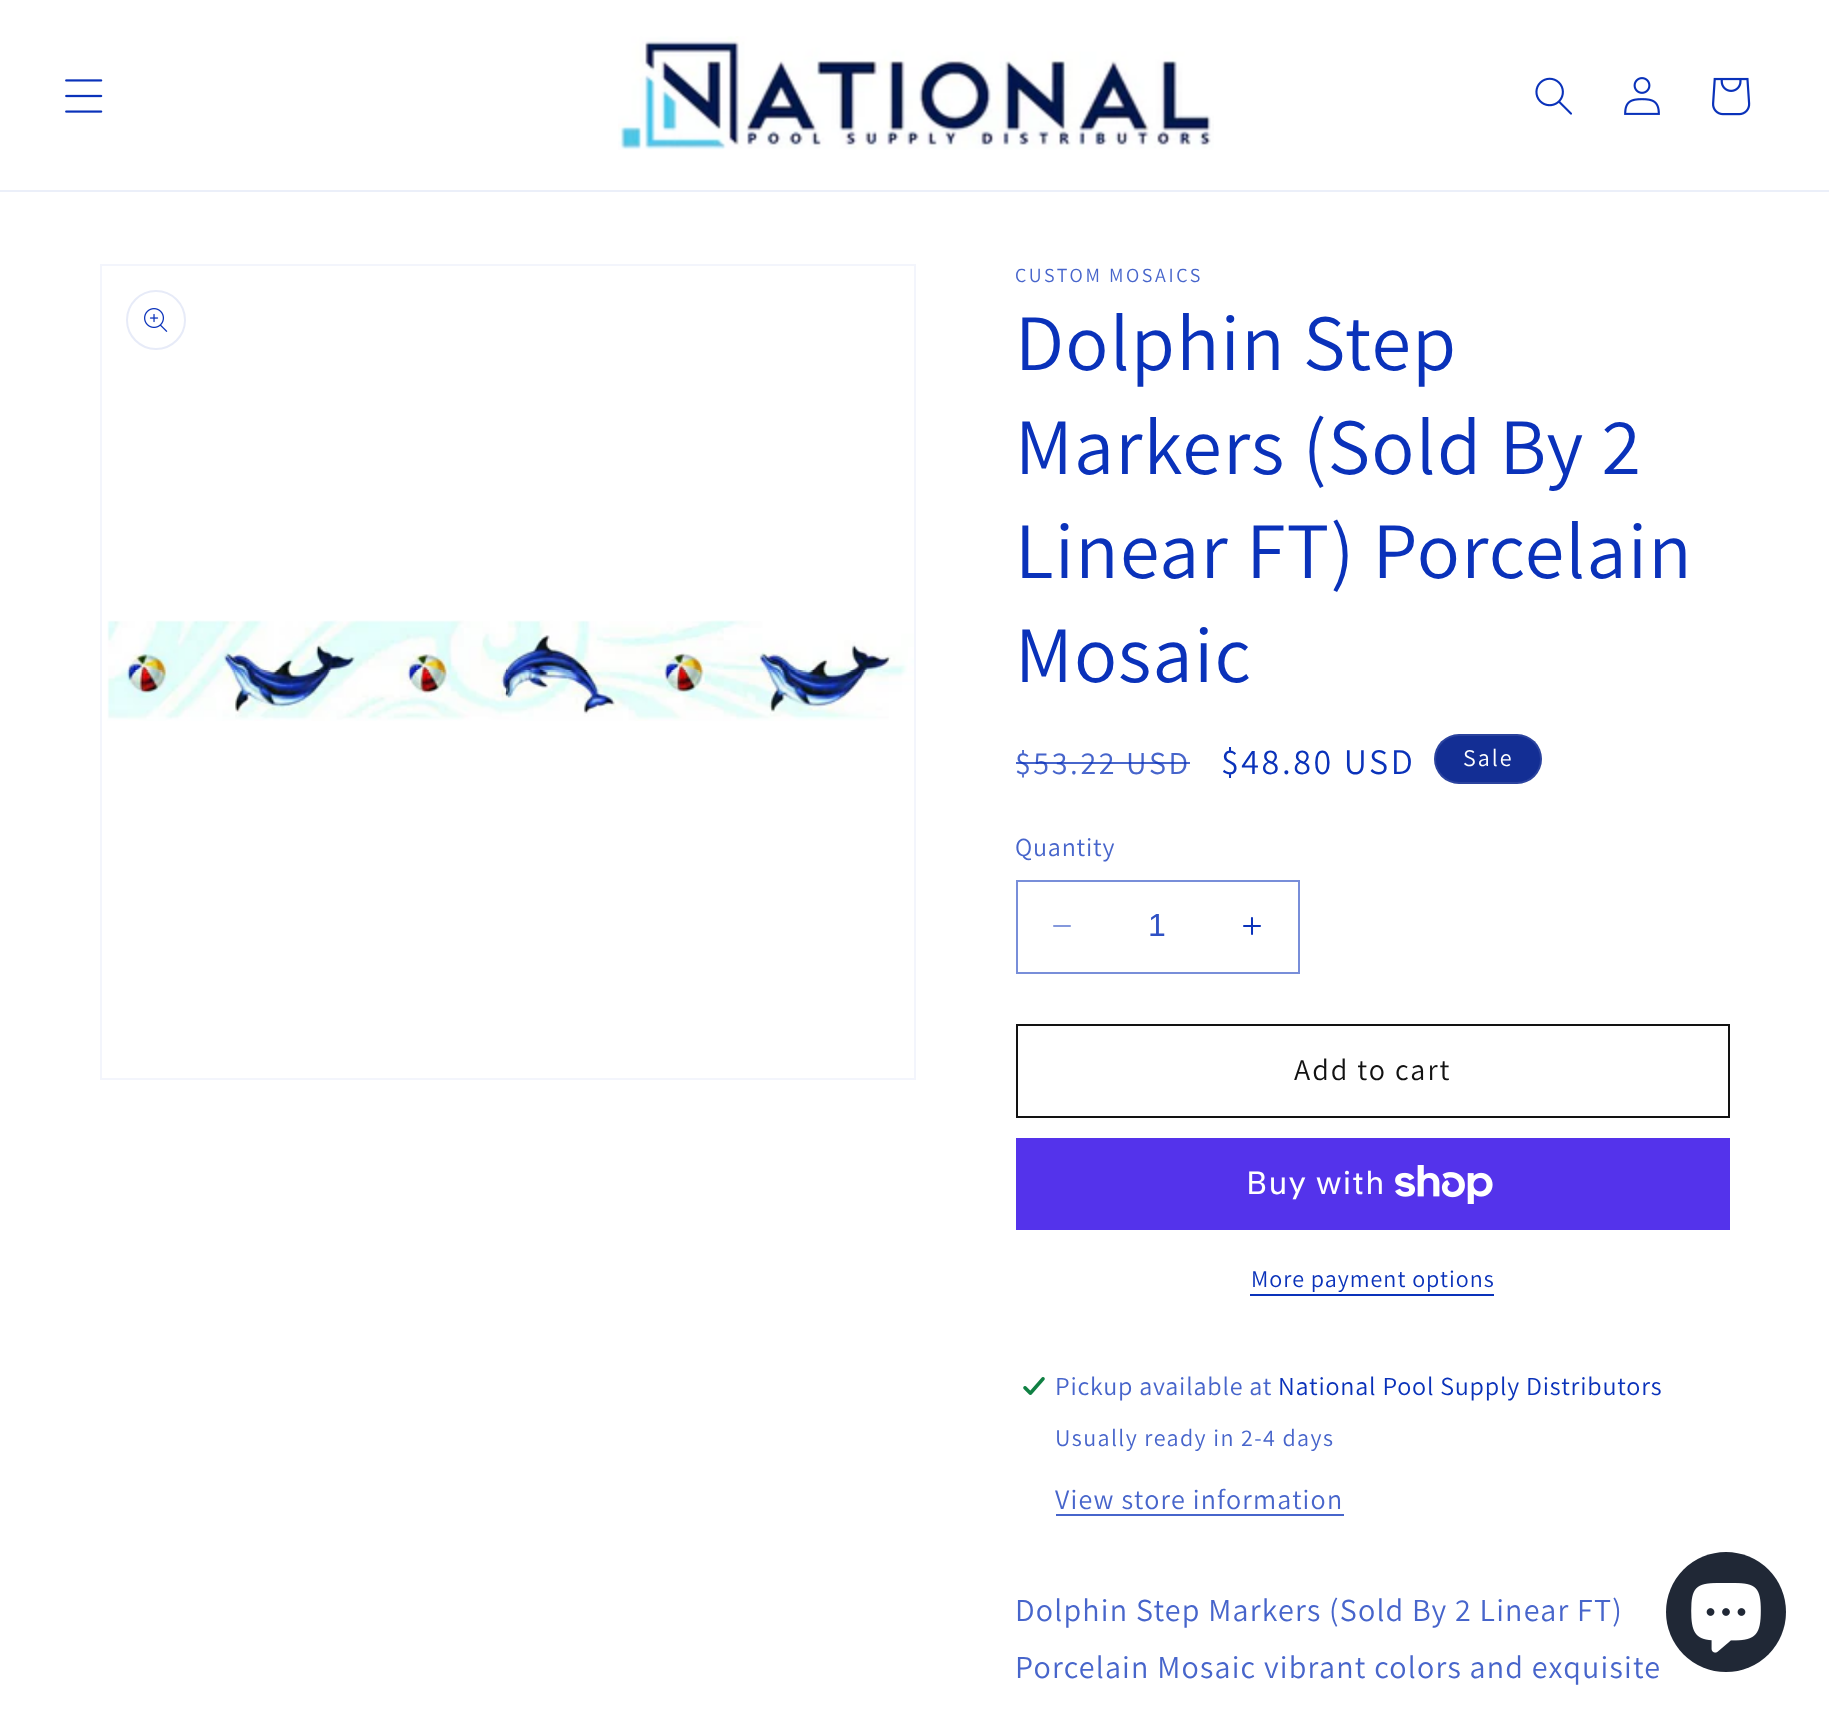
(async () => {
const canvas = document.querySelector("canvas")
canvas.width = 1829
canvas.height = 1713
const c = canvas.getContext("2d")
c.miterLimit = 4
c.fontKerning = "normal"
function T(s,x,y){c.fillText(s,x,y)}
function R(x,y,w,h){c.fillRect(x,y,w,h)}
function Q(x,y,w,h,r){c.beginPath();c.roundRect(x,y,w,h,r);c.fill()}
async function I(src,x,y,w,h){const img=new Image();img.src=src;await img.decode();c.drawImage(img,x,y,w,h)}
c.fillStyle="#fff"
R(0,0,1829,1713)
c.fillStyle="#ebeff9"
R(0,190,1829,2)
await I("1.png",65,79,38,34)
await I("2.png",618,36,596,114)
await I("3.png",1535,77,37,38)
await I("4.png",1624,77,36,38)
await I("5.png",1712,77,39,39)
c.strokeStyle="#f3f5fc"
c.lineWidth=2
c.strokeRect(101,265,814,814)
c.beginPath()
c.arc(156,320,29,0,7)
c.strokeStyle="#e7ebf8"
c.stroke()
await I("6.png",144,308,24,24)
await I("7.png",107,620,807,101)
c.letterSpacing="2.6px"
c.font="20px Assistant"
c.fillStyle="#4765cb"
T("CUSTOM MOSAICS",1015,282)
c.letterSpacing="1.2px"
c.font="80px Assistant"
c.fillStyle="#0a32ba"
T("Dolphin Step",1015,370)
T("Markers (Sold By 2",1015,474)
T("Linear FT) Porcelain",1015,578)
T("Mosaic",1015,682)
c.letterSpacing="2.6px"
c.font="32px Assistant"
c.fillStyle="#4765cb"
T("$53.22 USD",1015,774)
c.fillStyle="#0a32babf"
R(1016,762,174,2)
c.font="36px Assistant"
c.fillStyle="#0a32ba"
T("$48.80 USD",1221,774)
c.fillStyle="#132e94"
Q(1434,734,108,50,25)
c.beginPath()
c.roundRect(1435,735,106,48,24)
c.strokeStyle="#ffffff1a"
c.stroke()
c.letterSpacing="2px"
c.font="24px Assistant"
c.fillStyle="#fff"
T("Sale",1463,766)
c.letterSpacing="0.8px"
c.font="26px Assistant"
c.fillStyle="#4765cb"
T("Quantity",1015,856)
await I("8.png",1053,925,18,2)
await I("9.png",1243,917,18,18)
c.strokeStyle="#788ed9"
c.strokeRect(1017,881,282,92)
c.letterSpacing="0px"
c.font="32px Liberation Sans"
c.fillStyle="#2f51c4"
T("1",1148,936)
c.strokeStyle="#121212"
c.strokeRect(1017,1025,712,92)
c.letterSpacing="2px"
c.font="30px Assistant"
c.fillStyle="#121212"
T("Add to cart",1294,1080)
c.fillStyle="#5433eb"
R(1016,1138,714,92)
c.letterSpacing="1.2px"
c.font="32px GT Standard"
c.fillStyle="#fff"
T("Buy with",1246,1194)
await I("10.png",1395,1165,98,39)
c.letterSpacing="1px"
c.font="24px Assistant"
c.fillStyle="#0a32ba"
T("More payment options",1251,1287)
R(1250,1294,244,2)
await I("11.png",1023,1377,22,18)
c.letterSpacing="0.8px"
c.font="26px Assistant"
c.fillStyle="#4765cb"
T("Pickup available at",1055,1395)
c.fillStyle="#0a32ba"
T("National Pool Supply Distributors",1278,1395)
c.letterSpacing="1.4px"
c.font="24px Assistant"
c.fillStyle="#4765cb"
T("Usually ready in 2-4 days",1055,1446)
c.letterSpacing="1.2px"
c.font="28px Assistant"
T("View store information",1055,1509)
R(1056,1514,288,2)
c.font="32px Assistant"
T("Dolphin Step Markers (Sold By 2 Linear FT)",1015,1621)
T("Porcelain Mosaic vibrant colors and exquisite",1015,1678)
c.fillStyle="#202836"
c.beginPath()
c.arc(1726,1612,60,0,7)
c.fill()
await I("12.png",1691,1583,70,70)
})()
